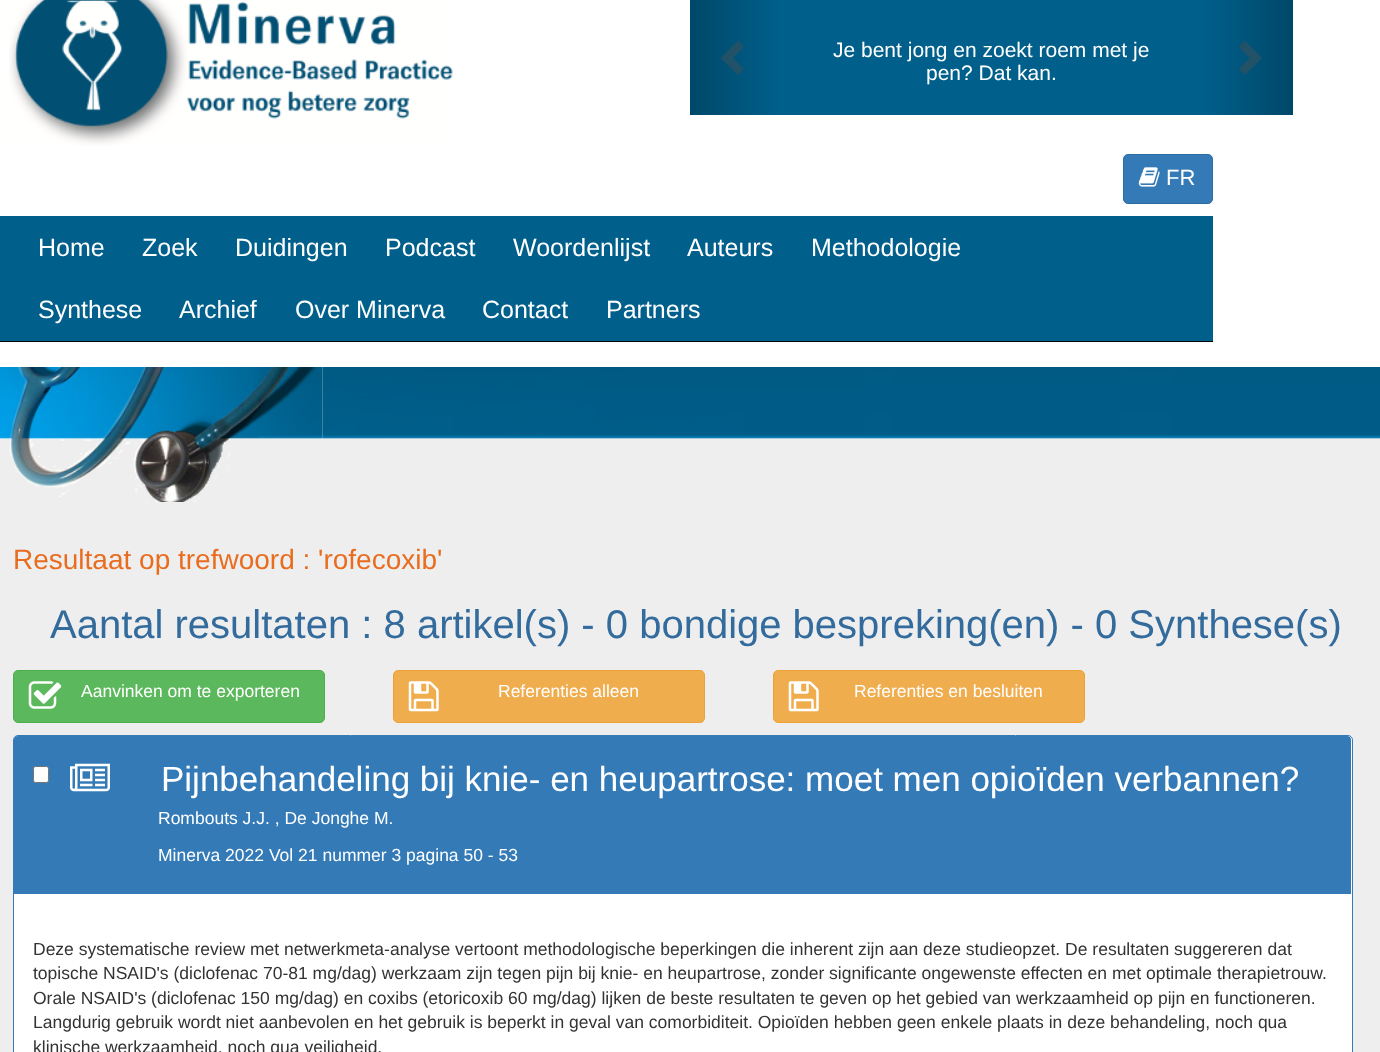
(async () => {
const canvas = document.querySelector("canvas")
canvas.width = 1380
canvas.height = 1052
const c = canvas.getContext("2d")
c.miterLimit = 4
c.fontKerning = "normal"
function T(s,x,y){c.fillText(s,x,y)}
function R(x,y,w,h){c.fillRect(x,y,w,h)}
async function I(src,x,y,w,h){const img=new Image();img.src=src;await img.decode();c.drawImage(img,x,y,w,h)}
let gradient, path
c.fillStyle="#fff"
R(0,0,1380,1052)
await I("1.png",9,0,444,146)
gradient = c.createLinearGradient(690,56,780,56)
gradient.addColorStop(0,"#004869")
gradient.addColorStop(1,"#005f8b")
c.fillStyle = gradient
R(690,0,90,115)
c.fillStyle="#225268"
path = new Path2D("M744 47l-11 11l11 11l-6 6l-17.5-17l17.5-17.5z")
c.fill(path)
c.fillStyle="#005f8b"
R(780,0,423,115)
c.font="21px Liberation Sans"
c.fillStyle="#fff"
T("Je bent jong en zoekt roem met je",833,57)
T("pen? Dat kan.",926,80)
gradient = c.createLinearGradient(1203,56,1293,56)
gradient.addColorStop(0,"#005f8b")
gradient.addColorStop(1,"#004869")
c.fillStyle = gradient
R(1203,0,90,115)
c.fillStyle="#225268"
path = new Path2D("M1262 58l-17 17l-6.5-6l11-11l-11-11l6.5-6.5z")
c.fill(path)
c.fillStyle="#337ab7"
c.beginPath()
c.roundRect(1123.5,154.5,89,49,4.5)
c.fill()
c.strokeStyle="#2e6da4"
c.stroke()
await I("2.png",1138,167,22,20)
c.font="22px Liberation Sans"
c.fillStyle="#fff"
T("FR",1166,185)
c.fillStyle="#005f8b"
R(0,216,1213,125)
c.fillStyle="#080808"
R(0,341,1213,1)
c.font="25px Liberation Sans"
c.fillStyle="#fff"
T("Home",38,256)
T("Zoek",142,256)
T("Duidingen",235,256)
T("Podcast",385,256)
T("Woordenlijst",513,256)
T("Auteurs",687,256)
T("Methodologie",811,256)
T("Synthese",38,318)
T("Archief",179,318)
T("Over Minerva",295,318)
T("Contact",482,318)
T("Partners",606,318)
c.fillStyle="#efeeef"
R(0,368,1380,684)
await I("3.png",0,367,323,135)
await I("4.png",322,367,1058,72)
c.font="28px Liberation Sans"
c.fillStyle="#e86d1f"
T("Resultaat op trefwoord : 'rofecoxib'",13,569)
c.font="40px Liberation Sans"
c.fillStyle="#336c9c"
T("Aantal resultaten : 8 artikel(s) - 0 bondige bespreking(en) - 0 Synthese(s)",50,638)
c.fillStyle="#5cb85c"
c.beginPath()
c.roundRect(13.5,670.5,311,52,4.5)
c.fill()
c.strokeStyle="#4cae4c"
c.stroke()
await I("5.png",28,681,34,28)
c.font="17.5px Liberation Sans"
c.fillStyle="#fff"
T("Aanvinken om te exporteren",81,697)
c.fillStyle="#f0ad4e"
c.beginPath()
c.roundRect(393.5,670.5,311,52,4.5)
c.fill()
c.strokeStyle="#eea236"
c.stroke()
await I("6.png",408,681,31,31)
c.fillStyle="#fff"
T("Referenties alleen",498,697)
c.fillStyle="#f0ad4e"
c.beginPath()
c.roundRect(773.5,670.5,311,52,4.5)
c.fill()
c.stroke()
await I("6.png",788,681,31,31)
c.fillStyle="#fff"
T("Referenties en besluiten",854,697)
c.beginPath()
c.roundRect(13.5,735.5,1339,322,4.5)
c.fill()
c.strokeStyle="#337ab7"
c.stroke()
c.fillStyle="#337ab7"
c.beginPath()
c.roundRect(14,736,1337,158,[4,4,0,0])
c.fill()
c.fillStyle="#fff"
c.beginPath()
c.roundRect(33.5,766.5,15,16,2)
c.fill()
c.strokeStyle="#767676"
c.stroke()
await I("7.png",70,763,40,29)
c.font="35px Liberation Sans"
T("Pijnbehandeling bij knie- en heupartrose: moet men opioïden verbannen?",161,791)
c.font="17.5px Liberation Sans"
T("Rombouts J.J. , De Jonghe M.",158,824)
T("Minerva 2022 Vol 21 nummer 3 pagina 50 - 53",158,861)
c.fillStyle="#333"
T("Deze systematische review met netwerkmeta-analyse vertoont methodologische beperkingen die inherent zijn aan deze studieopzet. De resultaten suggereren dat",33,955)
T("topische NSAID's (diclofenac 70-81 mg/dag) werkzaam zijn tegen pijn bij knie- en heupartrose, zonder significante ongewenste effecten en met optimale therapietrouw.",33,979)
T("Orale NSAID's (diclofenac 150 mg/dag) en coxibs (etoricoxib 60 mg/dag) lijken de beste resultaten te geven op het gebied van werkzaamheid op pijn en functioneren.",33,1004)
T("Langdurig gebruik wordt niet aanbevolen en het gebruik is beperkt in geval van comorbiditeit. Opioïden hebben geen enkele plaats in deze behandeling, noch qua",33,1028)
T("klinische werkzaamheid, noch qua veiligheid.",33,1053)
})()
